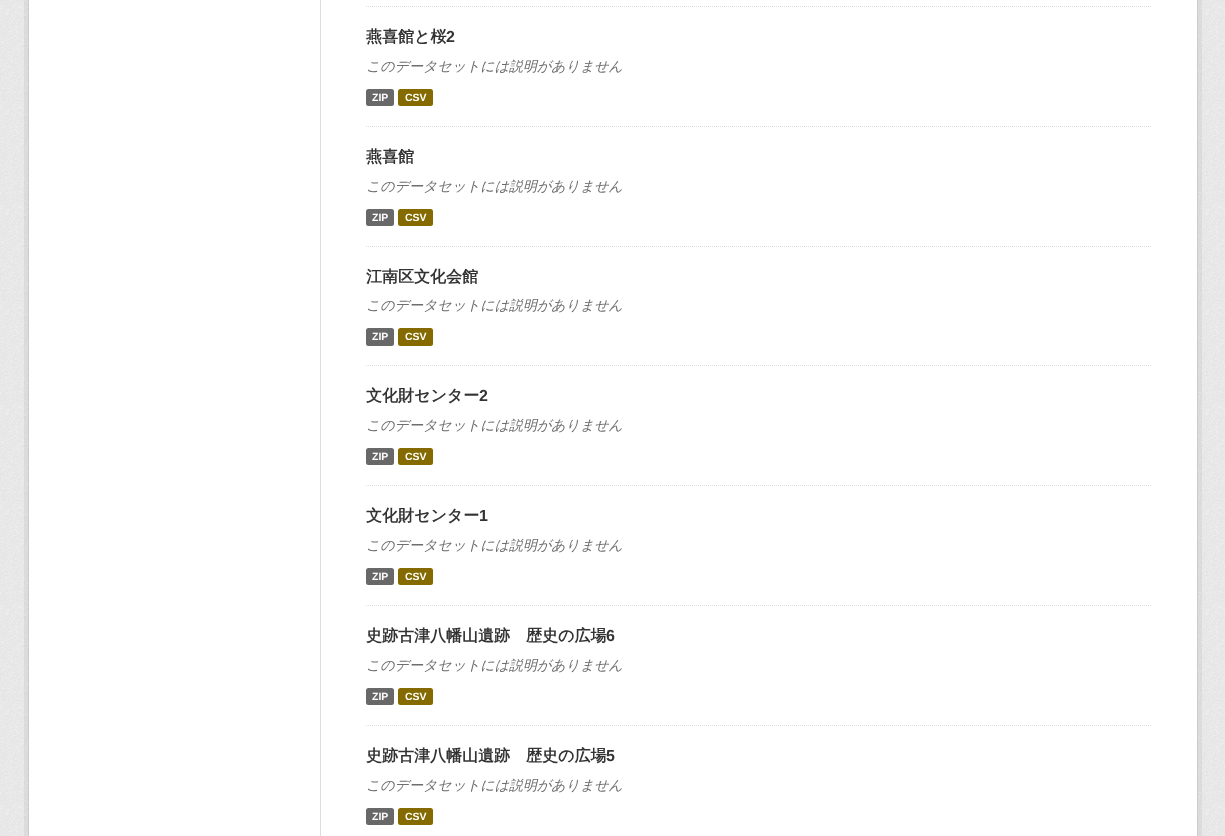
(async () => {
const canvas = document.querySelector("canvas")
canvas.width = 1225
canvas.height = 836
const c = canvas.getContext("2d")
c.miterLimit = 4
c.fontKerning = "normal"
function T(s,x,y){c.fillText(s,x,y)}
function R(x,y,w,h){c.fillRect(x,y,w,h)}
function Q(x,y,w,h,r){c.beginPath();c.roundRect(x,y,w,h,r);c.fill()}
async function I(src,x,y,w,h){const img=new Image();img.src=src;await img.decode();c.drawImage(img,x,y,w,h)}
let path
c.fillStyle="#eee"
R(0,0,1225,836)
await I("1.png",0,0,1225,836)
c.strokeStyle="#0000000d"
c.lineWidth=4
c.strokeRect(26,-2,1174,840)
c.fillStyle="#fff"
c.beginPath()
c.rect(28.5,-.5,1169,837)
c.fill()
c.strokeStyle="#ccc"
c.lineWidth=1
c.stroke()
c.fillStyle="#ddd"
R(320,0,1,836)
path = new Path2D("M366 6.5h786")
c.strokeStyle="#ddd"
c.setLineDash([1,1])
c.stroke(path)
path = new Path2D("M366 126.5h786")
c.stroke(path)
c.font="bold 16px WenQuanYi Zen Hei"
c.fillStyle="#333"
T("燕喜館と桜",366,42)
c.font="bold 16px Liberation Sans"
T("2",446,42)
c.font="italic 500 14px WenQuanYi Zen Hei"
c.fillStyle="#6e6e6e"
T("このデータセットには説明がありません",366,71)
c.fillStyle="#686868"
Q(366,89,28,17,2.5)
c.font="bold 10.5px Liberation Sans"
c.fillStyle="#fff"
T("ZIP",372,101)
c.fillStyle="#856a00"
Q(398,89,35,17,2.5)
c.fillStyle="#fff"
T("CSV",405,101)
path = new Path2D("M366 246.5h786")
c.stroke(path)
c.font="bold 16px WenQuanYi Zen Hei"
c.fillStyle="#333"
T("燕喜館",366,162)
c.font="italic 500 14px WenQuanYi Zen Hei"
c.fillStyle="#6e6e6e"
T("このデータセットには説明がありません",366,191)
c.fillStyle="#686868"
Q(366,209,28,17,2.5)
c.font="bold 10.5px Liberation Sans"
c.fillStyle="#fff"
T("ZIP",372,221)
c.fillStyle="#856a00"
Q(398,209,35,17,2.5)
c.fillStyle="#fff"
T("CSV",405,221)
path = new Path2D("M366 365.5h786")
c.stroke(path)
c.font="bold 16px WenQuanYi Zen Hei"
c.fillStyle="#333"
T("江南区文化会館",366,282)
c.font="italic 500 14px WenQuanYi Zen Hei"
c.fillStyle="#6e6e6e"
T("このデータセットには説明がありません",366,310)
c.fillStyle="#686868"
Q(366,328,28,18,2.5)
c.font="bold 10.5px Liberation Sans"
c.fillStyle="#fff"
T("ZIP",372,340)
c.fillStyle="#856a00"
Q(398,328,35,18,2.5)
c.fillStyle="#fff"
T("CSV",405,340)
path = new Path2D("M366 485.5h786")
c.stroke(path)
c.font="bold 16px WenQuanYi Zen Hei"
c.fillStyle="#333"
T("文化財センター",366,401)
c.font="bold 16px Liberation Sans"
T("2",479,401)
c.font="italic 500 14px WenQuanYi Zen Hei"
c.fillStyle="#6e6e6e"
T("このデータセットには説明がありません",366,430)
c.fillStyle="#686868"
Q(366,448,28,17,2.5)
c.font="bold 10.5px Liberation Sans"
c.fillStyle="#fff"
T("ZIP",372,460)
c.fillStyle="#856a00"
Q(398,448,35,17,2.5)
c.fillStyle="#fff"
T("CSV",405,460)
path = new Path2D("M366 605.5h786")
c.stroke(path)
c.font="bold 16px WenQuanYi Zen Hei"
c.fillStyle="#333"
T("文化財センター",366,521)
c.font="bold 16px Liberation Sans"
T("1",479,521)
c.font="italic 500 14px WenQuanYi Zen Hei"
c.fillStyle="#6e6e6e"
T("このデータセットには説明がありません",366,550)
c.fillStyle="#686868"
Q(366,568,28,17,2.5)
c.font="bold 10.5px Liberation Sans"
c.fillStyle="#fff"
T("ZIP",372,580)
c.fillStyle="#856a00"
Q(398,568,35,17,2.5)
c.fillStyle="#fff"
T("CSV",405,580)
path = new Path2D("M366 725.5h786")
c.stroke(path)
c.font="bold 16px WenQuanYi Zen Hei"
c.fillStyle="#333"
T("史跡古津八幡山遺跡　歴史の広場",366,641)
c.font="bold 16px Liberation Sans"
T("6",606,641)
c.font="italic 500 14px WenQuanYi Zen Hei"
c.fillStyle="#6e6e6e"
T("このデータセットには説明がありません",366,670)
c.fillStyle="#686868"
Q(366,688,28,17,2.5)
c.font="bold 10.5px Liberation Sans"
c.fillStyle="#fff"
T("ZIP",372,700)
c.fillStyle="#856a00"
Q(398,688,35,17,2.5)
c.fillStyle="#fff"
T("CSV",405,700)
c.font="bold 16px WenQuanYi Zen Hei"
c.fillStyle="#333"
T("史跡古津八幡山遺跡　歴史の広場",366,761)
c.font="bold 16px Liberation Sans"
T("5",606,761)
c.font="italic 500 14px WenQuanYi Zen Hei"
c.fillStyle="#6e6e6e"
T("このデータセットには説明がありません",366,790)
c.fillStyle="#686868"
Q(366,808,28,17,2.5)
c.font="bold 10.5px Liberation Sans"
c.fillStyle="#fff"
T("ZIP",372,820)
c.fillStyle="#856a00"
Q(398,808,35,17,2.5)
c.fillStyle="#fff"
T("CSV",405,820)
})()
